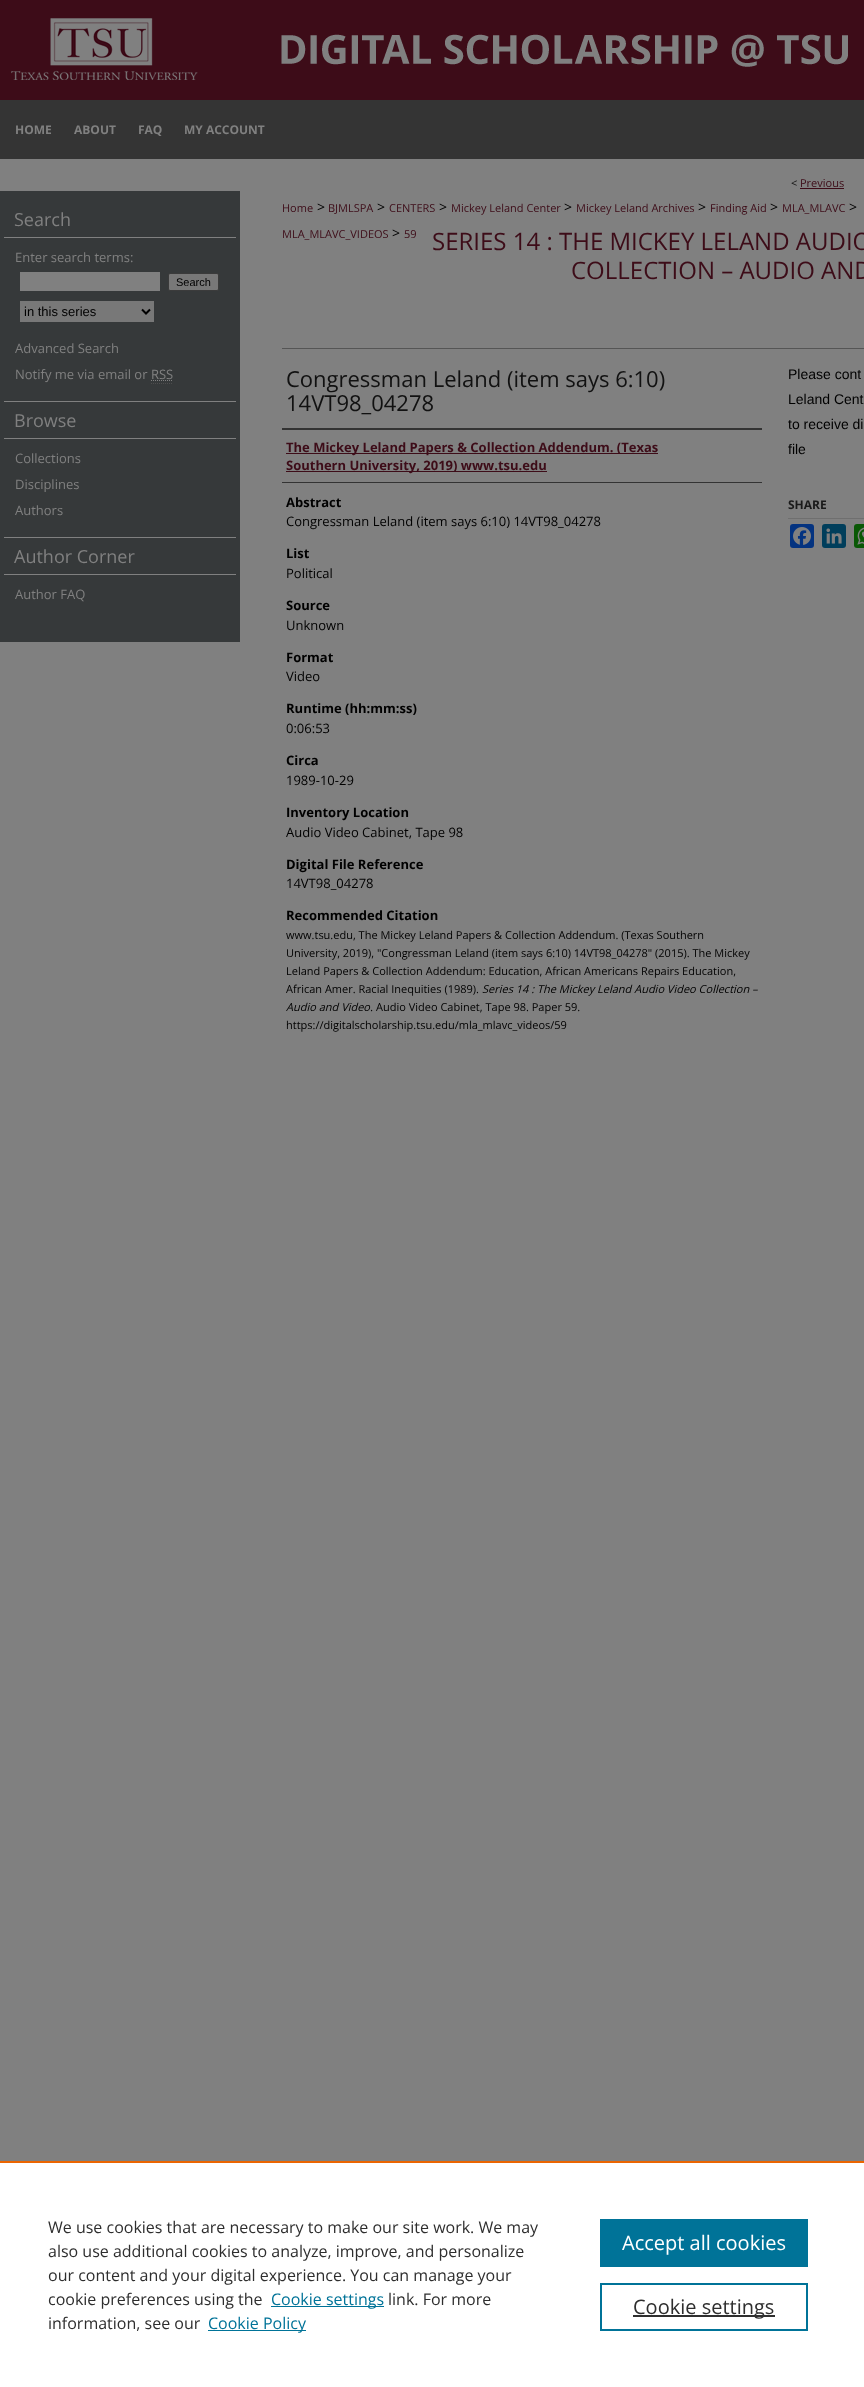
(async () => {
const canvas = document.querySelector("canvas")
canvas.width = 864
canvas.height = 2387
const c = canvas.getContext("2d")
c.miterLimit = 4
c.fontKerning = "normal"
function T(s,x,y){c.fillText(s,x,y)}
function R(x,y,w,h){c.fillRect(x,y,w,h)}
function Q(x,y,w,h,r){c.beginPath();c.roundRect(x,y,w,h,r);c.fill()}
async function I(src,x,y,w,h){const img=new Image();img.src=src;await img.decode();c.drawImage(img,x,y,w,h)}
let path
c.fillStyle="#808080"
R(0,0,864,2387)
await I("1.png",0,0,864,159)
await I("2.png",11,18,837,62)
c.font="bold 12px Open Sans"
T("HOME",15,134)
T("ABOUT",74,134)
T("FAQ",138,134)
T("MY ACCOUNT",184,134)
c.fillStyle="#36393a"
R(0,191,240,451)
c.fillStyle="#808080"
R(4,237,232,1)
c.font="18px Open Sans"
T("Search",14,226)
c.font="13px Open Sans"
T("Enter search terms:",15,262)
R(20,272,140,19)
c.fillStyle="#787878"
c.beginPath()
c.roundRect(168.5,273.5,50,17,1.5)
c.fill()
c.strokeStyle="#3b3b3b"
c.stroke()
c.font="11px Liberation Sans"
c.fillStyle="#000"
T("Search",176,286)
c.fillStyle="#787878"
R(20,301,134,21)
path = new Path2D("M142 309.5l4 4l4-4")
c.strokeStyle="#000"
c.lineWidth=2
c.stroke(path)
c.font="13px Liberation Sans"
c.fillStyle="#000"
T("in this series",24,316)
c.font="13px Open Sans"
c.fillStyle="#808080"
T("Advanced Search",15,353)
T("Notify me via email or RSS",15,379)
path = new Path2D("M151 380.5h22")
c.strokeStyle="#808080"
c.lineWidth=1
c.setLineDash([1,1])
c.stroke(path)
path = new Path2D("M151 383.5h22")
c.strokeStyle="#4d4d4d"
c.stroke(path)
R(4,401,232,1)
R(4,438,232,1)
c.font="18px Open Sans"
T("Browse",14,427)
c.font="13px Open Sans"
T("Collections",15,463)
T("Disciplines",15,489)
T("Authors",15,515)
R(4,537,232,1)
R(4,574,232,1)
c.font="18px Open Sans"
T("Author Corner",14,563)
c.font="13px Open Sans"
T("Author FAQ",15,599)
c.font="11px Open Sans"
c.fillStyle="#111"
T("<",791,187)
c.fillStyle="#3d0c18"
T("Previous",800,187)
R(800,188,44,1)
T("Home",282,212)
c.font="14px Open Sans"
c.fillStyle="#000"
T(">",317,212)
c.font="11px Open Sans"
c.fillStyle="#3d0c18"
T("BJMLSPA",328,212)
c.font="14px Open Sans"
c.fillStyle="#000"
T(">",377,212)
c.font="11px Open Sans"
c.fillStyle="#3d0c18"
T("CENTERS",389,212)
c.font="14px Open Sans"
c.fillStyle="#000"
T(">",439,212)
c.font="11px Open Sans"
c.fillStyle="#3d0c18"
T("Mickey Leland Center",451,212)
c.font="14px Open Sans"
c.fillStyle="#000"
T(">",564,212)
c.font="11px Open Sans"
c.fillStyle="#3d0c18"
T("Mickey Leland Archives",576,212)
c.font="14px Open Sans"
c.fillStyle="#000"
T(">",698,212)
c.font="11px Open Sans"
c.fillStyle="#3d0c18"
T("Finding Aid",710,212)
c.font="14px Open Sans"
c.fillStyle="#000"
T(">",770,212)
c.font="11px Open Sans"
c.fillStyle="#3d0c18"
T("MLA_MLAVC",782,212)
c.font="14px Open Sans"
c.fillStyle="#000"
T(">",849,212)
c.font="11px Open Sans"
c.fillStyle="#3d0c18"
T("MLA_MLAVC_VIDEOS",282,238)
c.font="14px Open Sans"
c.fillStyle="#000"
T(">",392,238)
c.font="11px Open Sans"
c.fillStyle="#3d0c18"
T("59",404,238)
c.font="24px Open Sans"
T("SERIES 14 : THE MICKEY LELAND AUDIO",432,250)
T("COLLECTION – AUDIO AND",571,279)
c.fillStyle="#555"
R(282,348,582,1)
c.font="22px Open Sans"
c.fillStyle="#111"
T("Congressman Leland (item says 6:10)",286,387)
T("14VT98_04278",286,411)
c.fillStyle="#333"
R(282,428,480,2)
R(282,482,480,1)
c.fillStyle="#3d0c18"
R(286,453,372,1)
c.font="bold 13px Open Sans"
T("The Mickey Leland Papers & Collection Addendum. (Texas",286,452)
R(286,471,261,1)
T("Southern University, 2019) www.tsu.edu",286,470)
c.fillStyle="#000"
T("Abstract",286,507)
c.font="13px Open Sans"
T("Congressman Leland (item says 6:10) 14VT98_04278",286,526)
c.font="bold 13px Open Sans"
T("List",286,558)
c.font="13px Open Sans"
T("Political",286,578)
c.font="bold 13px Open Sans"
T("Source",286,610)
c.font="13px Open Sans"
T("Unknown",286,630)
c.font="bold 13px Open Sans"
T("Format",286,662)
c.font="13px Open Sans"
T("Video",286,681)
c.font="bold 13px Open Sans"
T("Runtime (hh:mm:ss)",286,713)
c.font="13px Open Sans"
T("0:06:53",286,733)
c.font="bold 13px Open Sans"
T("Circa",286,765)
c.font="13px Open Sans"
T("1989-10-29",286,785)
c.font="bold 13px Open Sans"
T("Inventory Location",286,817)
c.font="13px Open Sans"
T("Audio Video Cabinet, Tape 98",286,837)
c.font="bold 13px Open Sans"
T("Digital File Reference",286,869)
c.font="13px Open Sans"
T("14VT98_04278",286,888)
c.font="bold 13px Open Sans"
T("Recommended Citation",286,920)
c.font="11px Open Sans"
T("www.tsu.edu, The Mickey Leland Papers & Collection Addendum. (Texas Southern",286,939)
T("University, 2019), \"Congressman Leland (item says 6:10) 14VT98_04278\" (2015). The Mickey",286,957)
T("Leland Papers & Collection Addendum: Education, African Americans Repairs Education,",286,975)
T("African Amer. Racial Inequities (1989).",286,993)
c.font="italic 11px Open Sans"
T("Series 14 : The Mickey Leland Audio Video Collection –",482,993)
T("Audio and Video.",286,1011)
c.font="11px Open Sans"
T("Audio Video Cabinet, Tape 98. Paper 59.",376,1011)
T("https://digitalscholarship.tsu.edu/mla_mlavc_videos/59",286,1029)
c.font="14px Liberation Sans"
T("Please cont",788,379)
T("Leland Cent",788,404)
T("to receive di",788,429)
T("file",788,454)
c.fillStyle="#6f6f6f"
R(788,518,76,1)
c.font="bold 12px Open Sans"
c.fillStyle="#1a1a1a"
T("SHARE",788,509)
c.fillStyle="#043380"
Q(790,524,24,24,3)
await I("3.png",793,527,18,18)
c.fillStyle="#003e5b"
Q(822,524,24,24,3)
await I("4.png",826,528,16,16)
c.fillStyle="#095805"
Q(854,524,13,24,3)
await I("5.png",857,527,7,18)
c.fillStyle="#fff"
R(0,2163,864,224)
c.fillStyle="#eb6500"
R(0,2161,864,2)
c.font="16px Open Sans"
c.fillStyle="#2e2e2e"
T("We use cookies that are necessary to make our site work. We may",48,2233)
T("also use additional cookies to analyze, improve, and personalize",48,2257)
T("our content and your digital experience. You can manage your",48,2281)
T("cookie preferences using the",48,2305)
c.fillStyle="#007398"
R(271,2306,113,1)
T("Cookie settings",271,2305)
c.fillStyle="#2e2e2e"
T("link. For more",388,2305)
T("information, see our",48,2329)
c.fillStyle="#007398"
R(208,2330,98,1)
T("Cookie Policy",208,2329)
R(600,2219,208,48)
c.font="20px Open Sans"
c.fillStyle="#fff"
T("Accept all cookies",622,2250)
c.strokeStyle="#007398"
c.lineWidth=2
c.setLineDash([])
c.strokeRect(601,2284,206,46)
c.fillStyle="#2e2e2e"
R(633,2315,142,2)
T("Cookie settings",633,2314)
})()
